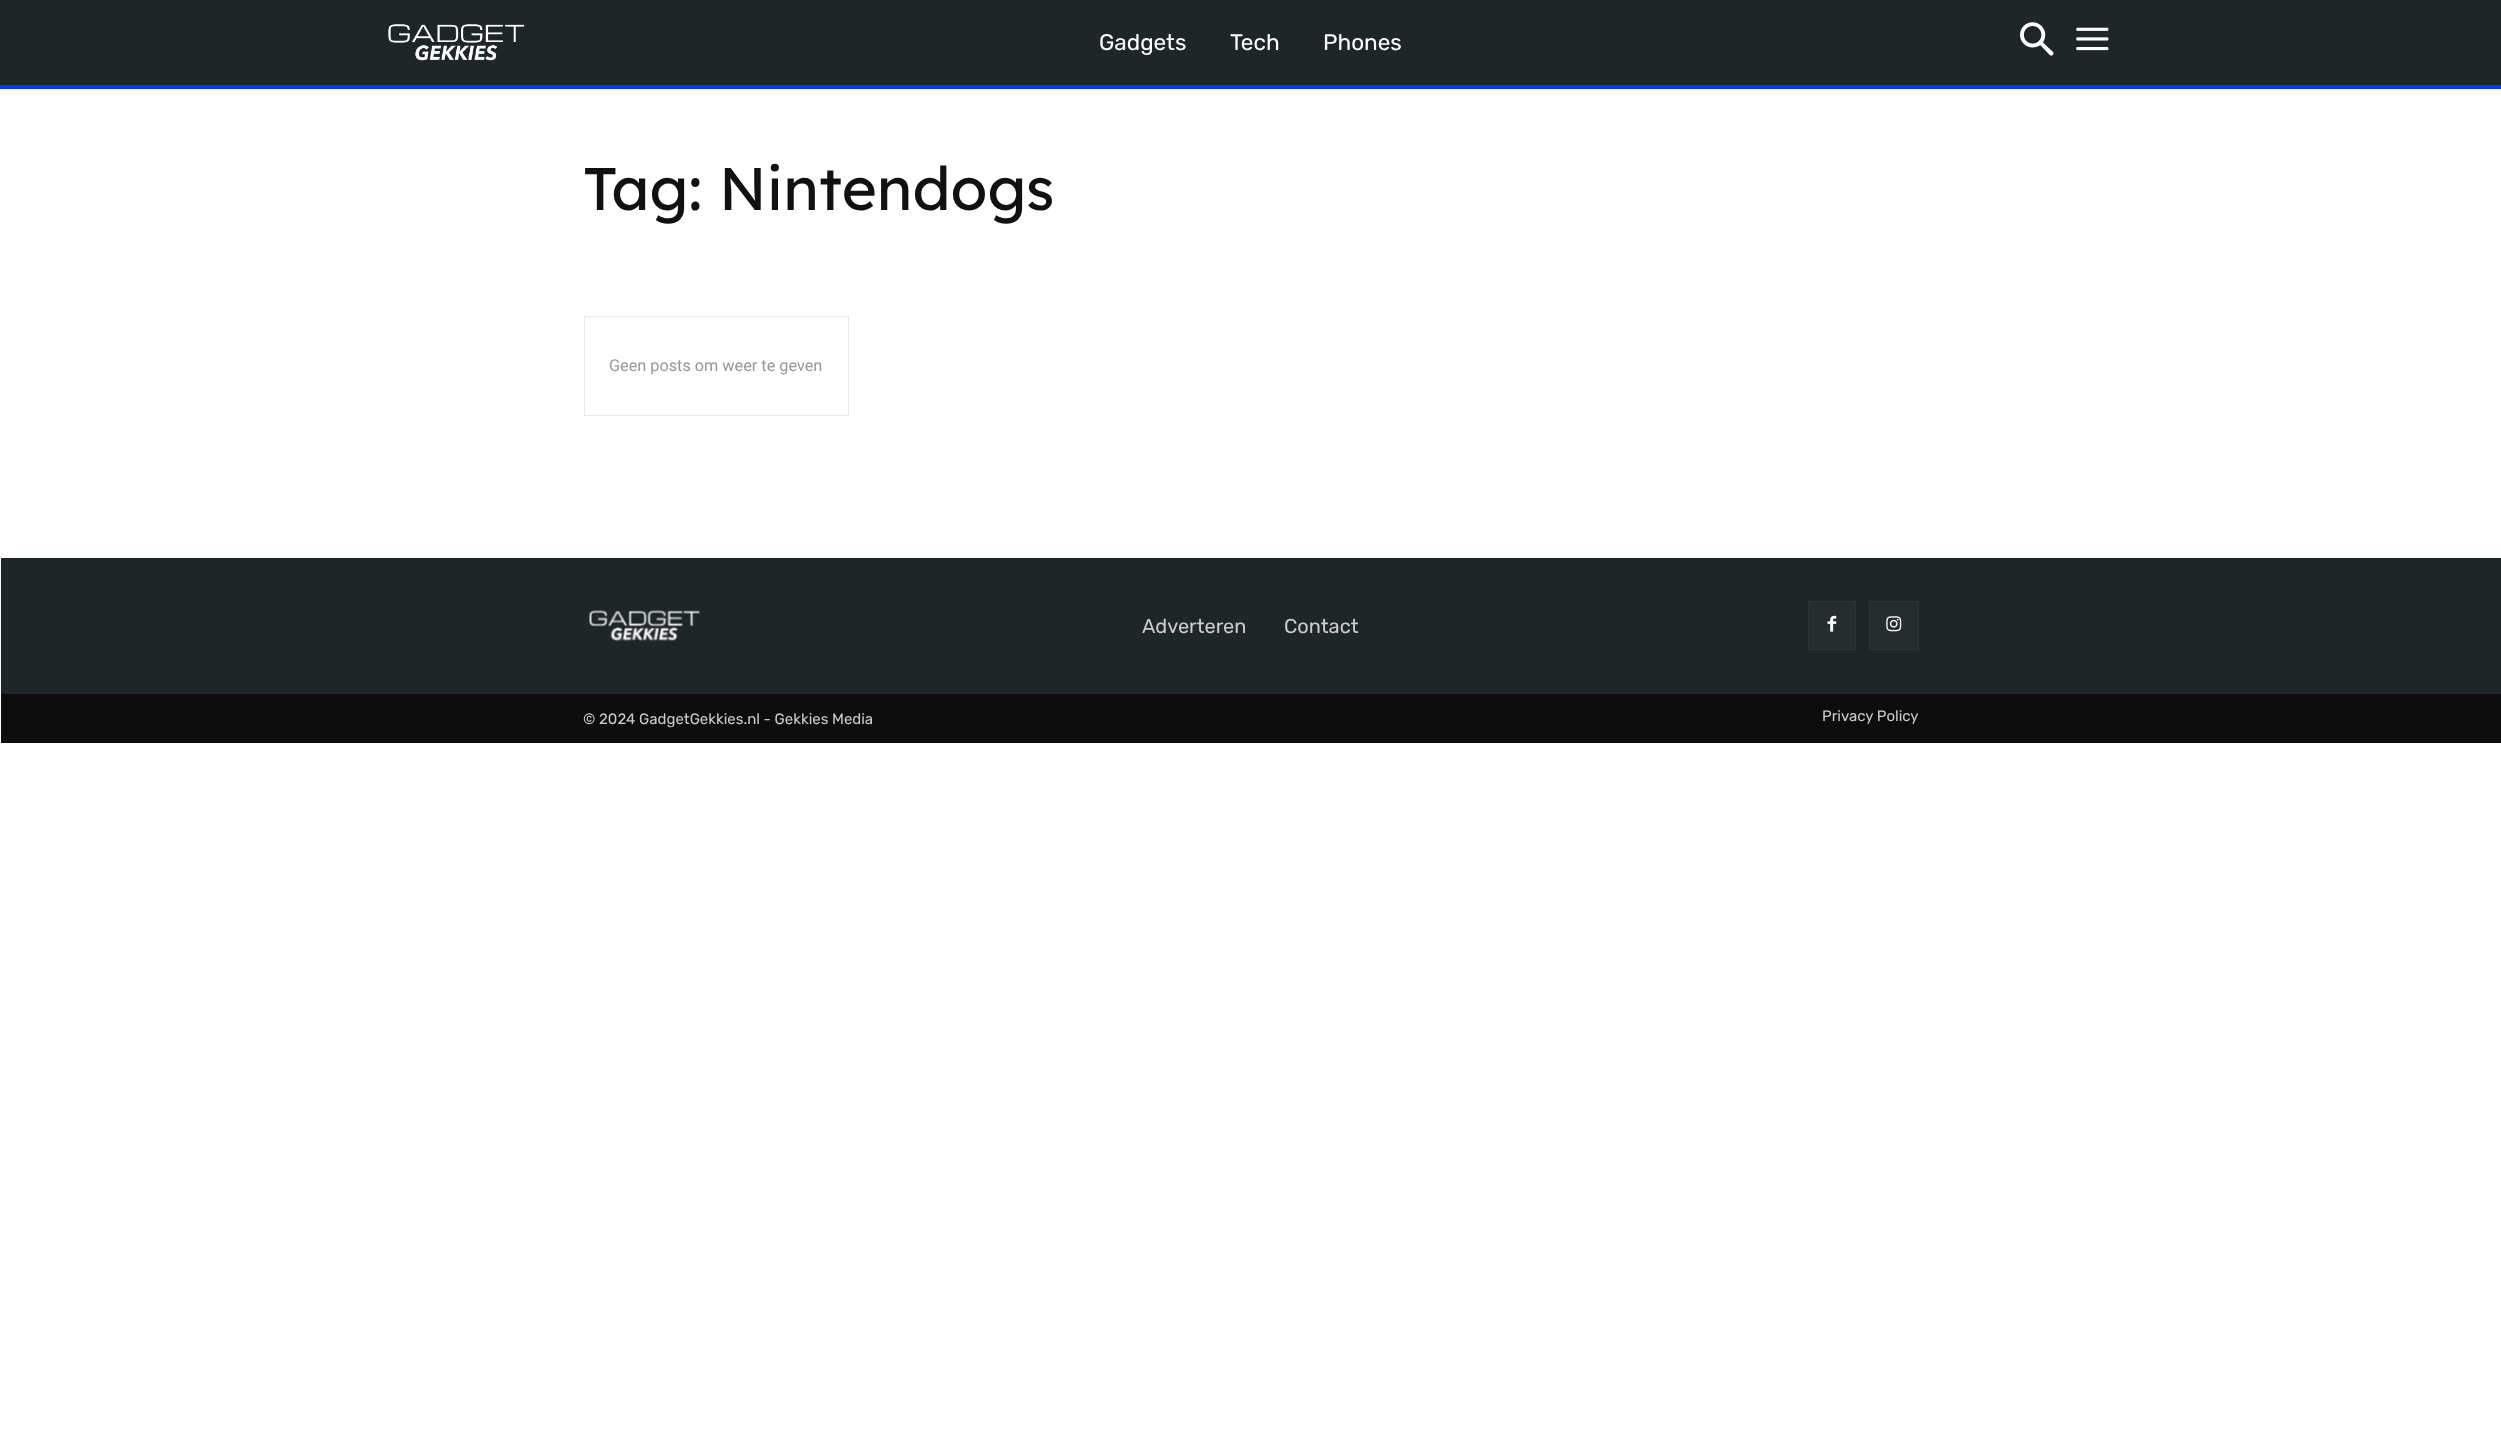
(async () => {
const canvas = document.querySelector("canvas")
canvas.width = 2501
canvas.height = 1438
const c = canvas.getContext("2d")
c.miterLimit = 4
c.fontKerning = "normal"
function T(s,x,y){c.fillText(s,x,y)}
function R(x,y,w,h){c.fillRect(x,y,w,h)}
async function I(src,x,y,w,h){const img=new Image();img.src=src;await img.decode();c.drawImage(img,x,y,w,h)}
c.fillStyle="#fff"
R(0,0,2501,1438)
c.fillStyle="#0037ff"
R(0,85,2501,4)
c.fillStyle="#1f2628"
R(0,0,2501,85)
await I("1.png",388,24,137,37)
c.font="22.5px Rubik"
c.fillStyle="#fff"
T("Gadgets",1099,50)
T("Tech",1230,50)
T("Phones",1323,50)
await I("2.png",2020,22,34,34)
await I("3.png",2076,27,33,24)
c.font="60px Lexend"
c.fillStyle="#111"
T("Tag: Nintendogs",583,210)
c.strokeStyle="#e8e8e8"
c.strokeRect(584.5,316.5,264,99)
c.font="16.25px Roboto"
c.fillStyle="#979797"
T("Geen posts om weer te geven",609,371)
c.fillStyle="#1f2628"
R(1,558,2500,136)
await I("4.png",589,610,111,31)
c.font="20px Rubik"
c.fillStyle="#ccc"
T("Adverteren",1142,633)
T("Contact",1284,633)
c.fillStyle="#262d2e"
c.beginPath()
c.rect(1808.5,601.5,47,48)
c.fill()
c.strokeStyle="#2d3334"
c.stroke()
await I("5.png",1827,615,10,17)
c.beginPath()
c.rect(1869.5,601.5,49,48)
c.fill()
c.stroke()
await I("6.png",1886,616,16,16)
c.fillStyle="#0d0d0d"
R(1,694,2500,49)
c.font="15px Rubik"
c.fillStyle="#ccc"
T("© 2024 GadgetGekkies.nl - Gekkies Media",583,724)
T("Privacy Policy",1822,721)
})()
